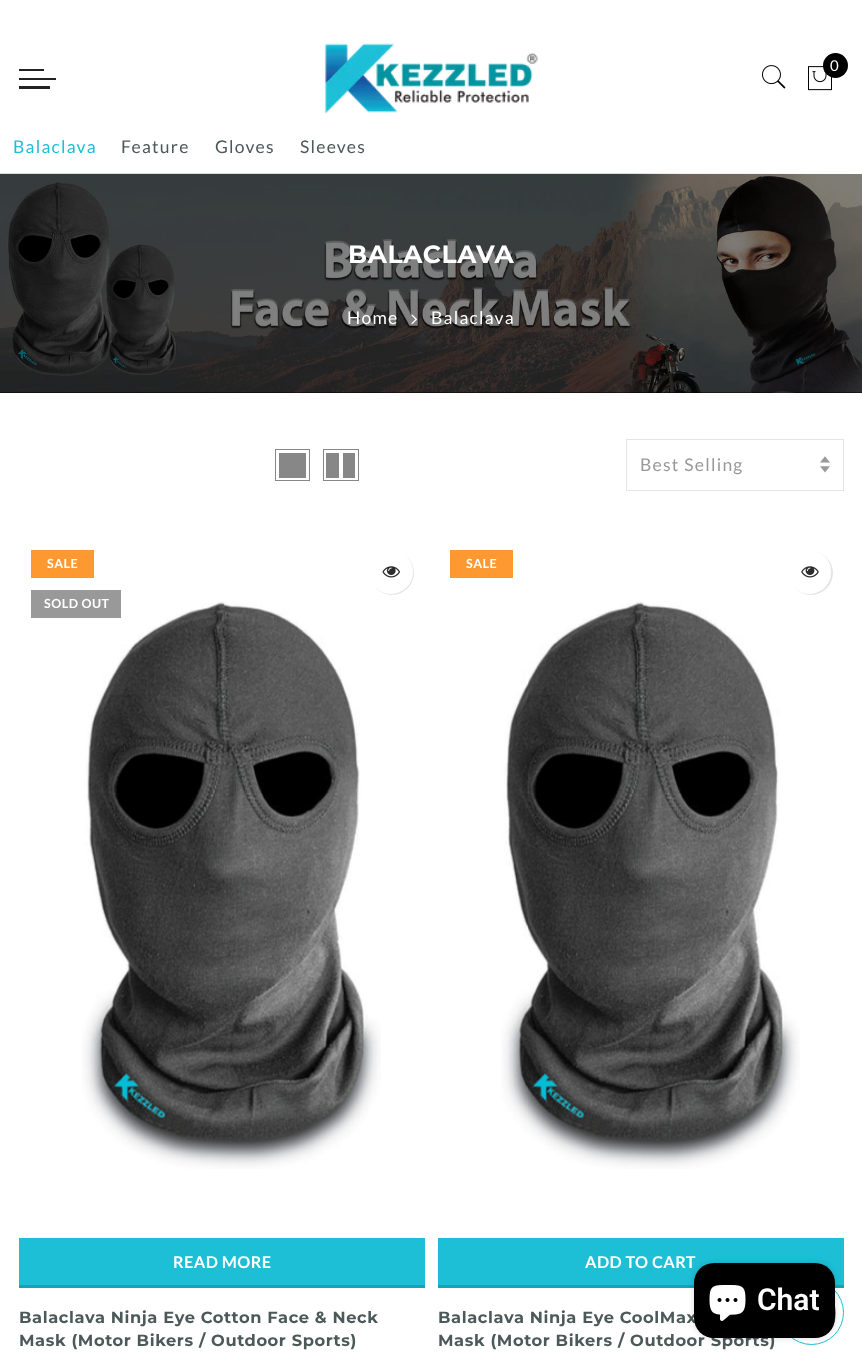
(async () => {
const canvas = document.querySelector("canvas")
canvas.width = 862
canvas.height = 1363
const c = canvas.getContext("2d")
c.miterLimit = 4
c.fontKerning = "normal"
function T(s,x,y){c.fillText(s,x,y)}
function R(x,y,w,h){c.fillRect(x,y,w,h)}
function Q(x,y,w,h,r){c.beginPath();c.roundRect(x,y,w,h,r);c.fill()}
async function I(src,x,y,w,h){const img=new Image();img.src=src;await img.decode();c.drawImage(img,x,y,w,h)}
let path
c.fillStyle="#fff"
R(0,0,862,1363)
await I("1.png",324,43,214,71)
await I("2.png",762,65,24,24)
await I("3.png",808,66,24,25)
c.fillStyle="#000"
c.beginPath()
c.arc(835.5,65.5,12.5,0,7)
c.fill()
c.letterSpacing="1.25px"
c.font="15px Lato"
c.fillStyle="#fff"
T("0",830,71)
c.fillStyle="#222"
R(19,69,25,2)
R(19,78,37,2)
R(19,86,31,3)
c.font="17.5px Lato"
c.fillStyle="#1dbfd7"
T("Balaclava",13,153)
c.fillStyle="#4d5959"
T("Feature",121,153)
T("Gloves",215,153)
T("Sleeves",300,153)
c.fillStyle="#000"
R(0,392,862,1)
await I("4.png",0,173,862,220)
c.letterSpacing="0.6px"
c.font="bold 25px Montserrat"
c.fillStyle="#fff"
T("BALACLAVA",348,263)
c.letterSpacing="1.25px"
c.font="17.5px Lato"
T("Home",347,324)
await I("5.png",411,314,6,11)
T("Balaclava",431,324)
c.strokeStyle="#878787"
c.strokeRect(275.5,449.5,34,31)
c.fillStyle="#878787"
R(279,453,27,25)
c.strokeRect(323.5,449.5,35,31)
R(343,453,12,25)
R(326,453,13,25)
c.strokeStyle="#e5e5e5"
c.strokeRect(626.5,439.5,217,51)
await I("6.png",820,456,10,17)
c.fillStyle="#999"
T("Best Selling",640,471)
c.fillStyle="#fe9931"
R(31,550,63,28)
c.letterSpacing="0.5px"
c.font="bold 12.5px Lato"
c.fillStyle="#fff"
T("SALE",47,568)
await I("8.png",82,601,299,568)
c.fillStyle="#999"
R(31,590,90,28)
c.fillStyle="#fff"
T("SOLD OUT",44,608)
c.fillStyle="#0000001a"
c.filter="blur(0.5px)"
c.beginPath()
c.roundRect(370,551,44,44,22)
c.fill()
c.filter="none"
c.fillStyle="#fff"
c.beginPath()
c.arc(391,572,22,0,7)
c.fill()
await I("7.png",382,566,18,12)
c.fillStyle="#1dbfd7"
R(19,1238,406,47)
c.fillStyle="#19a2b7"
R(19,1285,406,3)
c.letterSpacing="0.4px"
c.font="bold 16.25px Lato"
c.fillStyle="#fff"
T("READ MORE",173,1268)
c.letterSpacing="0.6px"
c.font="bold 16.25px Montserrat"
c.fillStyle="#4d5959"
T("Balaclava Ninja Eye Cotton Face & Neck",19,1323)
T("Mask (Motor Bikers / Outdoor Sports)",19,1346)
c.fillStyle="#fe9931"
R(450,550,63,28)
c.letterSpacing="0.5px"
c.font="bold 12.5px Lato"
c.fillStyle="#fff"
T("SALE",466,568)
c.fillStyle="#0000001a"
c.filter="blur(0.5px)"
c.beginPath()
c.roundRect(789,551,44,44,22)
c.fill()
c.filter="none"
c.fillStyle="#fff"
Q(788,550,43,44,21.5)
await I("9.png",801,566,18,12)
await I("10.png",501,601,299,568)
c.fillStyle="#1dbfd7"
R(438,1238,406,47)
c.fillStyle="#19a2b7"
R(438,1285,406,3)
c.letterSpacing="0.4px"
c.font="bold 16.25px Lato"
c.fillStyle="#fff"
T("ADD TO CART",585,1268)
path = new Path2D("M633.5 1255c2.5-2.5 6.5-3.5 10-3c12.5 2.5 10.5 21-2.5 21c-2.5 0-5.5-1-7.5-3")
c.strokeStyle="#1dbfd7"
c.lineWidth=1.2
c.stroke(path)
c.letterSpacing="0.6px"
c.font="bold 16.25px Montserrat"
c.fillStyle="#4d5959"
T("Balaclava Ninja Eye CoolMax",438,1323)
T("Mask (Motor Bikers / Outdoor Sports)",438,1346)
c.beginPath()
c.arc(811.5,1312.5,32,0,7)
c.lineWidth=1
c.stroke()
c.fillStyle="#1dbfd7"
c.beginPath()
c.arc(811,1313,25,0,7)
c.fill()
c.fillStyle="#00000026"
c.filter="blur(3px)"
c.beginPath()
c.roundRect(694,1263,141,75,20)
c.fill()
c.filter="none"
c.fillStyle="#000"
Q(694,1263,141,75,20)
await I("11.png",709,1285,37,36)
c.letterSpacing="0px"
c.font="600 30px Roboto"
c.fillStyle="#fff"
T("Chat",757,1310)
})()
